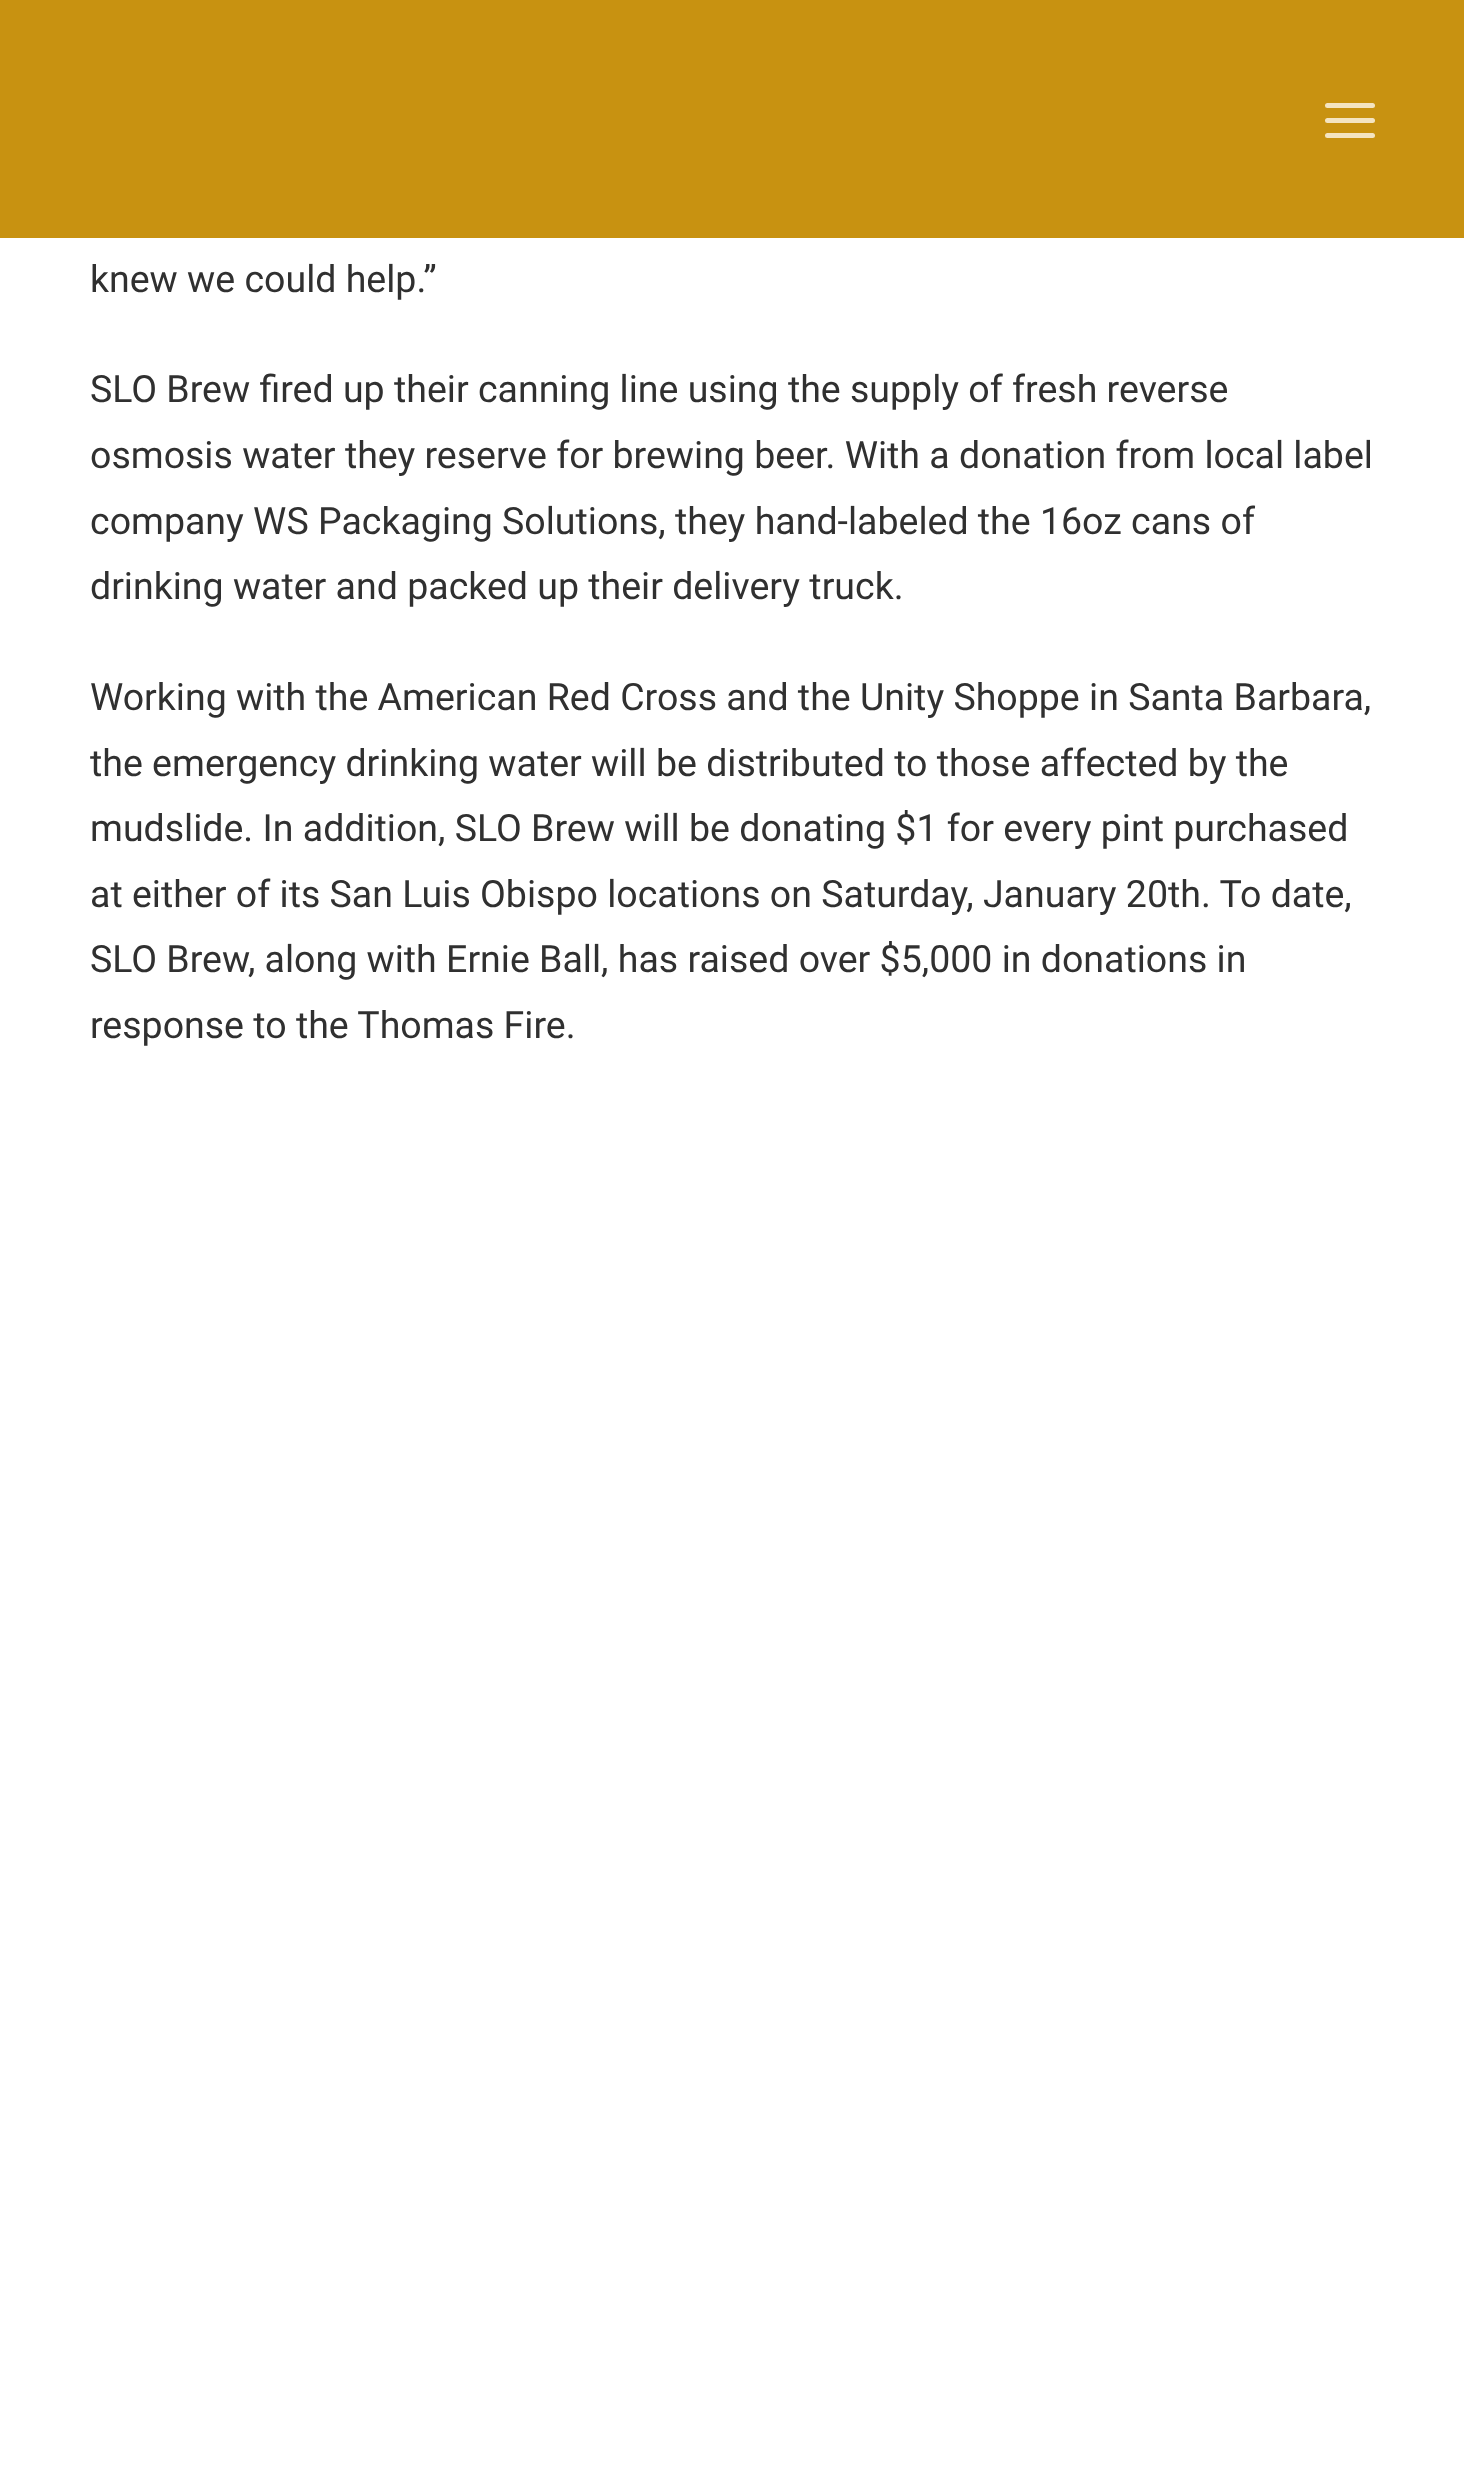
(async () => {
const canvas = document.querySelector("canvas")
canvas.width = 1464
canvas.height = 2469
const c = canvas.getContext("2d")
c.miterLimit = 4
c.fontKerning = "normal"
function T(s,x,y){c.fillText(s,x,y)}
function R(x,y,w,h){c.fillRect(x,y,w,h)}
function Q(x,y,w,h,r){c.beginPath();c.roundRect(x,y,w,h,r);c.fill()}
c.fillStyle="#fff"
R(0,0,1464,2469)
c.fillStyle="#c89211"
R(0,0,1464,238)
c.fillStyle="#f4e4c1"
Q(1325,118,50,5,2.5)
Q(1325,103,50,5,2.5)
Q(1325,133,50,5,2.5)
c.font="37.5px Roboto"
c.fillStyle="#303030"
T("knew we could help.”",90,292)
T("SLO Brew fired up their canning line using the supply of fresh reverse",90,402)
T("osmosis water they reserve for brewing beer. With a donation from local label",90,468)
T("company WS Packaging Solutions, they hand-labeled the 16oz cans of",90,534)
T("drinking water and packed up their delivery truck.",90,599)
T("Working with the American Red Cross and the Unity Shoppe in Santa Barbara,",90,710)
T("the emergency drinking water will be distributed to those affected by the",90,776)
T("mudslide. In addition, SLO Brew will be donating $1 for every pint purchased",90,841)
T("at either of its San Luis Obispo locations on Saturday, January 20th. To date,",90,907)
T("SLO Brew, along with Ernie Ball, has raised over $5,000 in donations in",90,972)
T("response to the Thomas Fire.",90,1038)
})()
